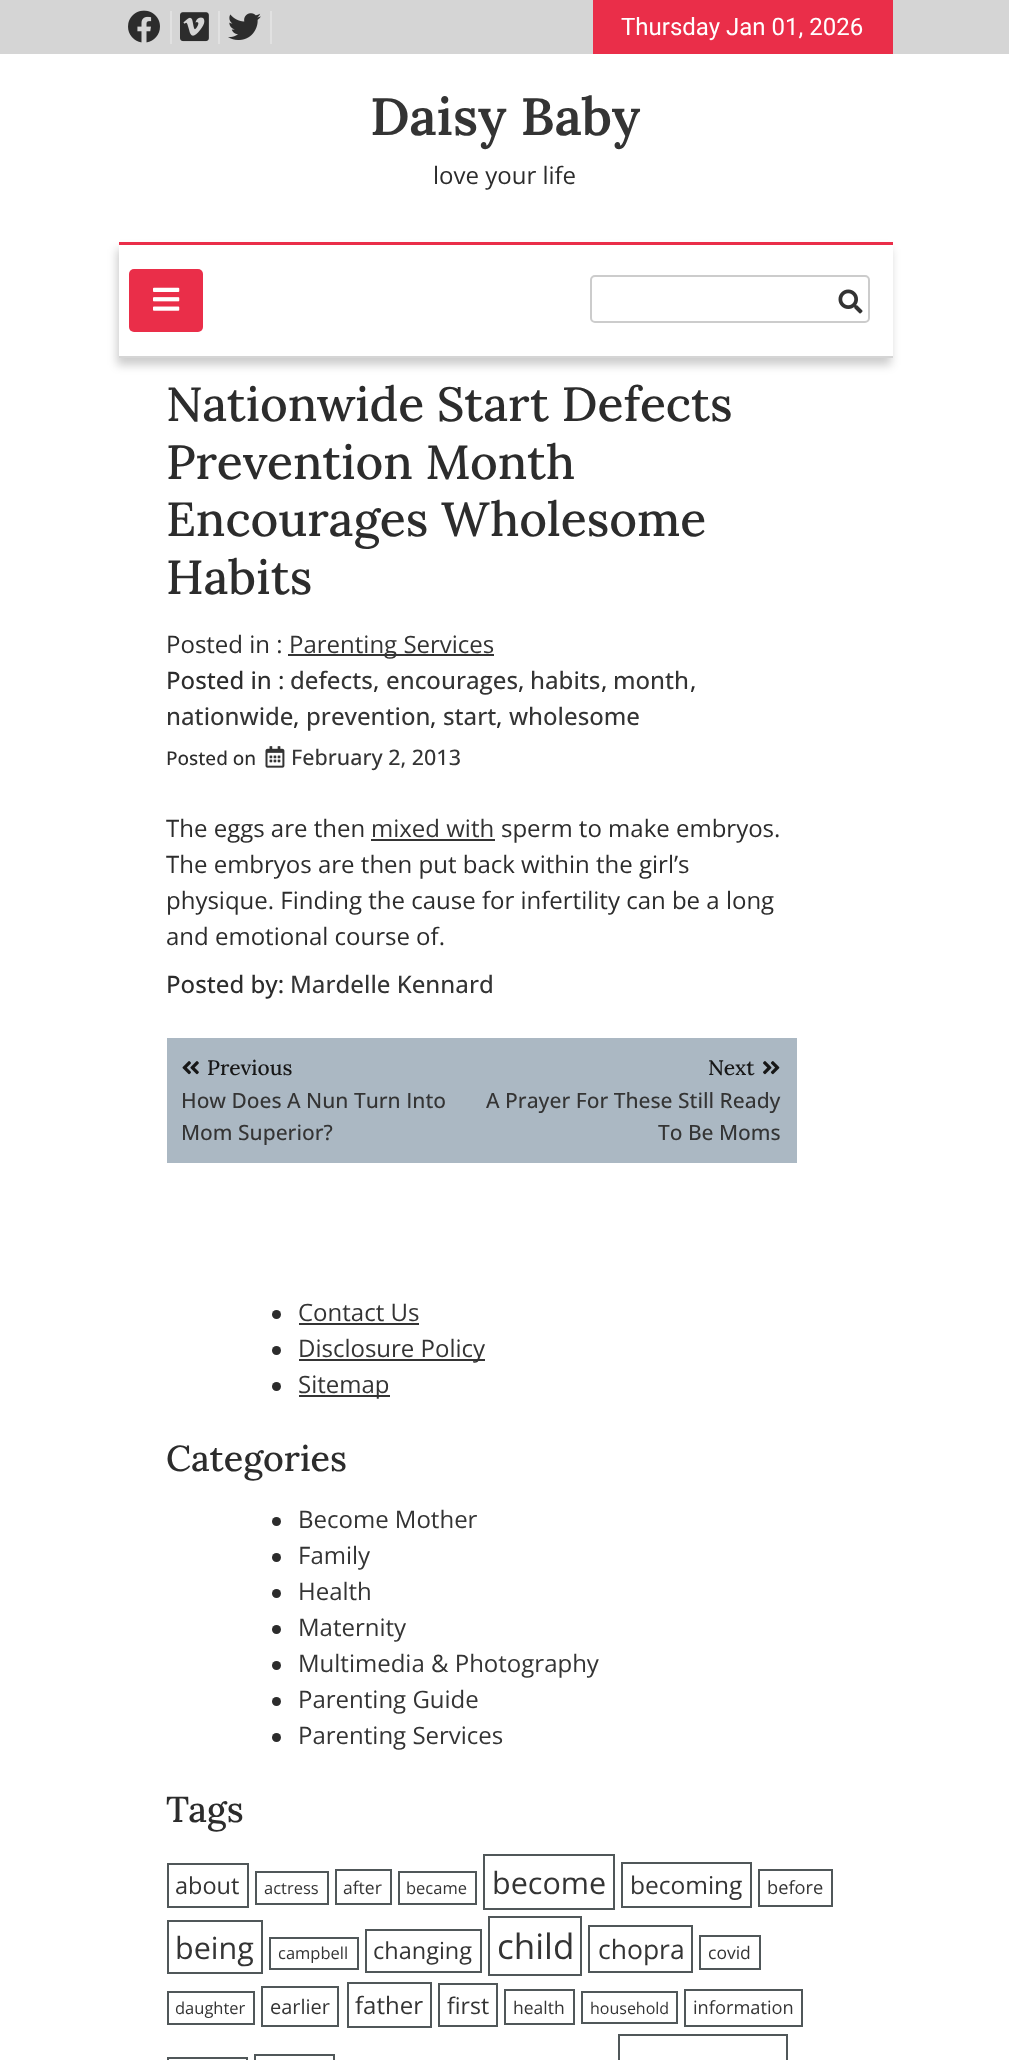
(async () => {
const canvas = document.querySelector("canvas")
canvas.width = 1009
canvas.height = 2060
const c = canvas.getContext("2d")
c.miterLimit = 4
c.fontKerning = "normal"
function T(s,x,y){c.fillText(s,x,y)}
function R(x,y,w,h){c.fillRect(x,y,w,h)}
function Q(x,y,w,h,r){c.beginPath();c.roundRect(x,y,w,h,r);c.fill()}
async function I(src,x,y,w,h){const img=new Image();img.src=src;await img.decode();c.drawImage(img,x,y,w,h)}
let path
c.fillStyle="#fff"
R(0,0,1009,2060)
c.fillStyle="#d5d5d5"
R(0,0,1009,54)
c.fillStyle="#e1e1e1"
R(170,11,2,33)
await I("1.png",128,10,32,33)
R(218,11,2,33)
await I("2.png",180,12,29,30)
R(270,11,2,33)
await I("3.png",228,13,33,27)
c.fillStyle="#ea2e49"
R(593,0,300,54)
c.font="24px Roboto"
c.fillStyle="#fff"
T("Thursday Jan 01, 2026",621,35)
c.font="600 52.5px Lora"
c.fillStyle="#343434"
T("Daisy Baby",370,135)
c.font="24px Open Sans"
c.fillStyle="#2c2c2c"
T("love your life",433,184)
c.save()
path = new Path2D("M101 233h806v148h-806zm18 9h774v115h-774z")
c.clip(path,"evenodd")
c.fillStyle="#00000033"
c.filter="blur(5px)"
c.beginPath()
c.rect(117,249,774,116)
c.fill()
c.filter="none"
c.restore()
c.fillStyle="#ea2e49"
R(119,242,774,3)
c.fillStyle="#d5d5d5"
R(119,356,774,2)
c.fillStyle="#ea2e49"
Q(129,269,74,63,5)
await I("4.png",153,287,27,24)
c.beginPath()
c.roundRect(591,276,278,46,4)
c.strokeStyle="#ccc"
c.lineWidth=2
c.stroke()
await I("5.png",838,289,25,25)
c.font="500 48px Lora"
c.fillStyle="#2c2c2c"
T("Nationwide Start Defects",166,421)
T("Prevention Month",166,479)
T("Encourages Wholesome",166,536)
T("Habits",166,594)
c.font="24px Open Sans"
T("Posted in :",166,653)
c.fillStyle="#343434"
R(288,654,206,2)
T("Parenting Services",289,653)
c.font="500 24px Open Sans"
c.fillStyle="#2c2c2c"
T("Posted in :",166,689)
c.fillStyle="#343434"
T("defects",290,689)
c.fillStyle="#2c2c2c"
T(",",373,689)
c.fillStyle="#343434"
T("encourages",386,689)
c.fillStyle="#2c2c2c"
T(",",518,689)
c.fillStyle="#343434"
T("habits",530,689)
c.fillStyle="#2c2c2c"
T(",",601,689)
c.fillStyle="#343434"
T("month",613,689)
c.fillStyle="#2c2c2c"
T(",",690,689)
c.fillStyle="#343434"
T("nationwide",166,725)
c.fillStyle="#2c2c2c"
T(",",293,725)
c.fillStyle="#343434"
T("prevention",306,725)
c.fillStyle="#2c2c2c"
T(",",430,725)
c.fillStyle="#343434"
T("start",443,725)
c.fillStyle="#2c2c2c"
T(",",496,725)
c.fillStyle="#343434"
T("wholesome",509,725)
c.font="500 19px Open Sans"
c.fillStyle="#2c2c2c"
T("Posted on",166,765)
await I("6.png",265,746,20,22)
c.font="500 21.5px Open Sans"
c.fillStyle="#343434"
T("February 2, 2013",291,765)
c.font="24px Open Sans"
c.fillStyle="#2c2c2c"
T("The eggs are then",166,837)
c.fillStyle="#343434"
T("mixed with",371,837)
R(371,839,124,2)
c.fillStyle="#2c2c2c"
T("sperm to make embryos.",501,837)
T("The embryos are then put back within the girl’s",166,873)
T("physique. Finding the cause for infertility can be a long",166,909)
T("and emotional course of.",166,945)
c.font="500 24px Open Sans"
T("Posted by:",166,993)
c.fillStyle="#343434"
T("Mardelle Kennard",290,993)
c.fillStyle="#abb8c3"
R(167,1038,630,125)
await I("7.png",182,1061,17,14)
c.font="500 21px Lora"
c.fillStyle="#171717"
T("Previous",207,1075)
c.font="500 21px Open Sans"
c.fillStyle="#343434"
T("How Does A Nun Turn Into",181,1108)
T("Mom Superior?",181,1140)
c.font="500 21px Lora"
c.fillStyle="#171717"
T("Next",708,1075)
await I("8.png",763,1061,17,14)
c.font="500 21px Open Sans"
c.fillStyle="#343434"
T("A Prayer For These Still Ready",486,1108)
T("To Be Moms",658,1140)
c.fillStyle="#2c2c2c"
c.beginPath()
c.arc(276.5,1314.5,4.5,0,7)
c.fill()
c.font="24px Open Sans"
c.fillStyle="#343434"
T("Contact Us",298,1321)
R(299,1323,120,2)
c.fillStyle="#2c2c2c"
c.beginPath()
c.arc(276.5,1350.5,4.5,0,7)
c.fill()
c.fillStyle="#343434"
R(299,1359,186,2)
T("Disclosure Policy",298,1357)
c.fillStyle="#2c2c2c"
c.beginPath()
c.arc(276.5,1386.5,4.5,0,7)
c.fill()
c.fillStyle="#343434"
R(299,1395,91,2)
T("Sitemap",298,1393)
c.font="500 36px Lora"
c.fillStyle="#2c2c2c"
T("Categories",166,1471)
c.beginPath()
c.arc(276.5,1521.5,4.5,0,7)
c.fill()
c.font="24px Open Sans"
c.fillStyle="#343434"
T("Become Mother",298,1528)
c.fillStyle="#2c2c2c"
c.beginPath()
c.arc(276.5,1557.5,4.5,0,7)
c.fill()
c.fillStyle="#343434"
T("Family",298,1564)
c.fillStyle="#2c2c2c"
c.beginPath()
c.arc(276.5,1593.5,4.5,0,7)
c.fill()
c.fillStyle="#343434"
T("Health",298,1600)
c.fillStyle="#2c2c2c"
c.beginPath()
c.arc(276.5,1629.5,4.5,0,7)
c.fill()
c.fillStyle="#343434"
T("Maternity",298,1636)
c.fillStyle="#2c2c2c"
c.beginPath()
c.arc(276.5,1665.5,4.5,0,7)
c.fill()
c.fillStyle="#343434"
T("Multimedia & Photography",298,1672)
c.fillStyle="#2c2c2c"
c.beginPath()
c.arc(276.5,1701.5,4.5,0,7)
c.fill()
c.fillStyle="#343434"
T("Parenting Guide",298,1708)
c.fillStyle="#2c2c2c"
c.beginPath()
c.arc(276.5,1737.5,4.5,0,7)
c.fill()
c.fillStyle="#343434"
T("Parenting Services",298,1744)
c.font="500 36px Lora"
c.fillStyle="#2c2c2c"
T("Tags",166,1822)
c.strokeStyle="#505759"
c.strokeRect(168,1864,80,43)
c.font="23.5px Open Sans"
c.fillStyle="#343434"
T("about",175,1894)
c.strokeRect(256,1872,72,32)
c.font="16.5px Open Sans"
T("actress",264,1894)
c.strokeRect(336,1870,55,34)
c.font="17.5px Open Sans"
T("after",343,1894)
c.strokeRect(399,1872,77,32)
c.font="16.5px Open Sans"
T("became",406,1894)
c.strokeRect(484,1855,130,54)
c.font="30.5px Open Sans"
T("become",492,1894)
c.strokeRect(622,1863,129,44)
c.font="24.5px Open Sans"
T("becoming",630,1894)
c.strokeRect(759,1870,73,36)
c.font="18.25px Open Sans"
T("before",767,1894)
c.strokeRect(168,1921,94,52)
c.font="30.5px Open Sans"
T("being",175,1959)
c.strokeRect(270,1938,88,31)
c.font="16.5px Open Sans"
T("campbell",278,1959)
c.strokeRect(366,1930,115,42)
c.font="23.5px Open Sans"
T("changing",373,1959)
c.strokeRect(489,1917,92,58)
c.font="35px Open Sans"
T("child",497,1959)
c.strokeRect(589,1926,103,46)
c.font="26.5px Open Sans"
T("chopra",598,1959)
c.strokeRect(700,1936,60,33)
c.font="17.5px Open Sans"
T("covid",708,1959)
c.strokeRect(168,1992,86,32)
c.font="16.5px Open Sans"
T("daughter",175,2014)
c.strokeRect(262,1987,76,39)
c.font="20px Open Sans"
T("earlier",270,2014)
c.strokeRect(348,1983,83,44)
c.font="24px Open Sans"
T("father",355,2014)
c.strokeRect(439,1984,58,42)
c.font="23px Open Sans"
T("first",447,2014)
c.strokeRect(505,1990,69,34)
c.font="17.5px Open Sans"
T("health",513,2014)
c.strokeRect(582,1992,95,31)
c.font="16px Open Sans"
T("household",590,2014)
c.strokeRect(685,1990,117,36)
c.font="18.25px Open Sans"
T("information",693,2014)
c.strokeRect(168,2058,79,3)
c.strokeRect(255,2055,79,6)
c.strokeRect(619,2035,168,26)
})()
